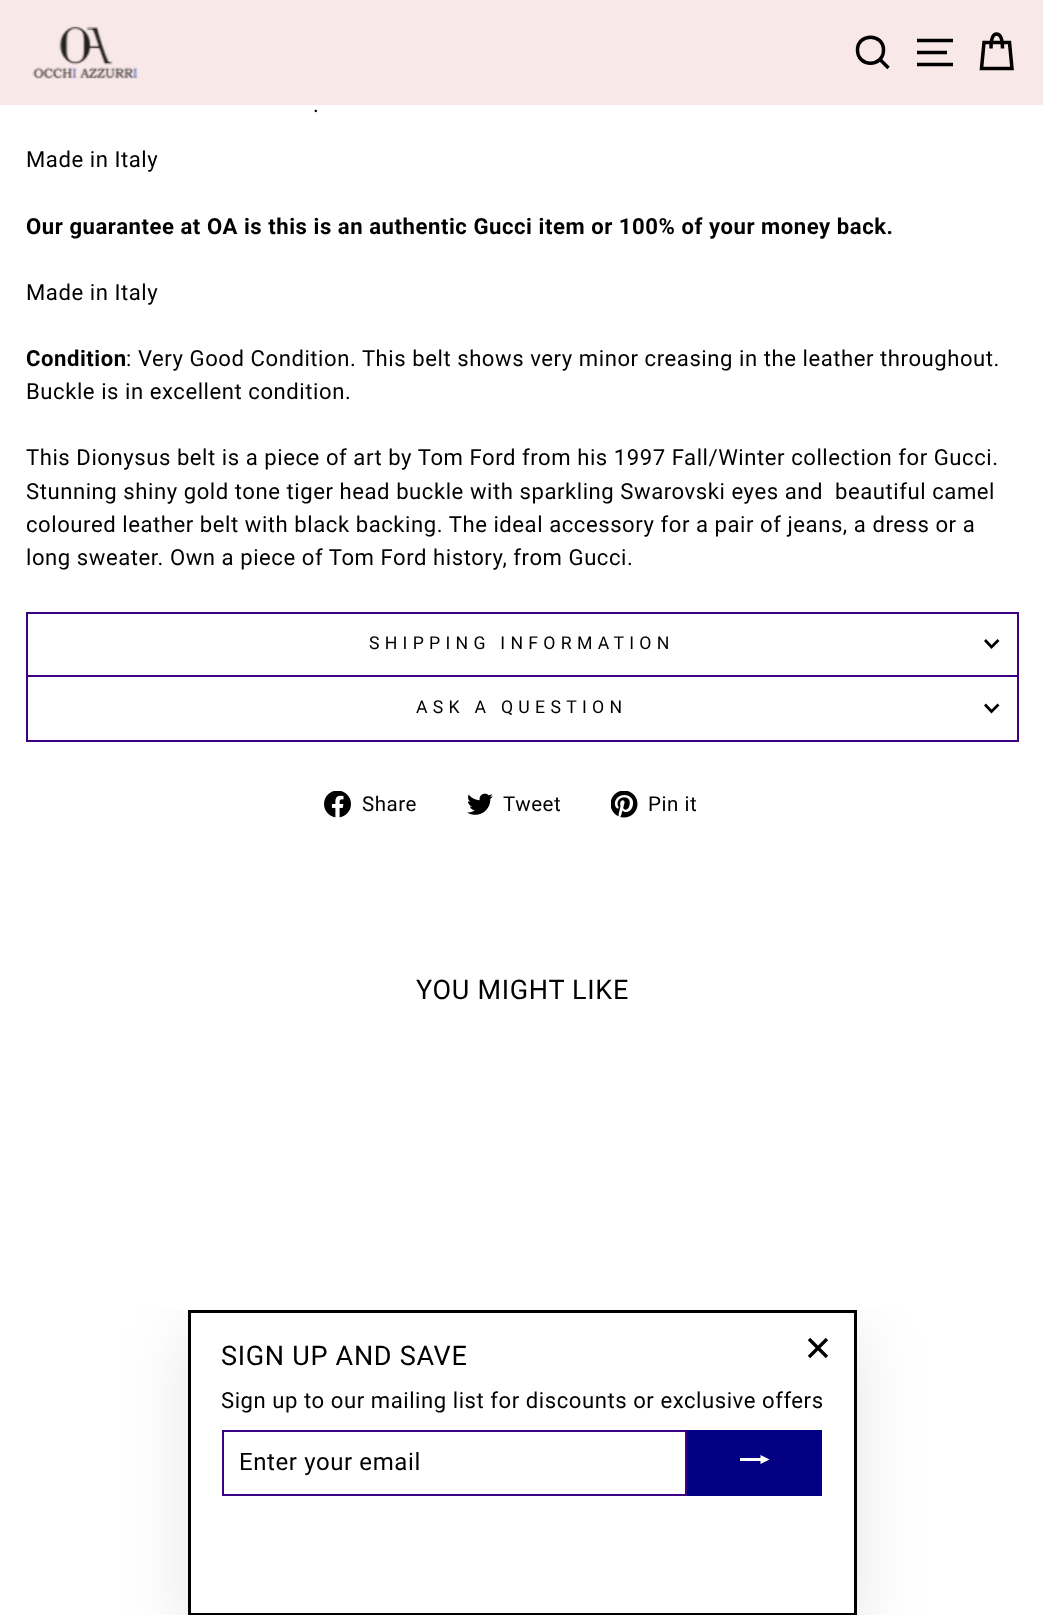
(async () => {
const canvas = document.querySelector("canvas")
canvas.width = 1043
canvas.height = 1615
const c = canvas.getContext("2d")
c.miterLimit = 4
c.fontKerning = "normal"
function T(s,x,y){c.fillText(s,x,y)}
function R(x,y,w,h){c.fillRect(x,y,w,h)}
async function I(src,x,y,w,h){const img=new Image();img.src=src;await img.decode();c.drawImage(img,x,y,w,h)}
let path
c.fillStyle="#fff"
R(0,0,1043,1615)
c.fillStyle="#f9e8e8"
R(0,0,1043,105)
await I("1.png",32,26,106,53)
path = new Path2D("M883.5 50c0 17.5-26 17.5-26 0c0-17 26-17 26 0zm5 18l-8.5-8.5")
c.strokeStyle="#000"
c.lineWidth=3.5
c.stroke(path)
path = new Path2D("M917 40.5h36m-36 12h30m-30 12h36")
c.stroke(path)
path = new Path2D("M991 48.5c0-11.5 2.5-14.5 5.5-14.5c3.5 0 6 3 6 14.5m-18.5-6h25.5l2.5 26h-30.5z")
c.stroke(path)
c.letterSpacing="0.55px"
c.font="22.1px Roboto"
c.fillStyle="#000"
T(".",313,112)
T("Made in Italy",26,167)
c.font="bold 22.1px Roboto"
T("Our guarantee at OA is this is an authentic Gucci item or 100% of your money back.",26,234)
c.font="22.1px Roboto"
T("Made in Italy",26,300)
c.font="bold 22.1px Roboto"
T("Condition",26,366)
c.font="22.1px Roboto"
T(": Very Good Condition. This belt shows very minor creasing in the leather throughout.",126,366)
T("Buckle is in excellent condition.",26,399)
T("This Dionysus belt is a piece of art by Tom Ford from his 1997 Fall/Winter collection for Gucci.",26,465)
T("Stunning shiny gold tone tiger head buckle with sparkling Swarovski eyes and  beautiful camel",26,499)
T("coloured leather belt with black backing. The ideal accessory for a pair of jeans, a dress or a",26,532)
T("long sweater. Own a piece of Tom Ford history, from Gucci.",26,565)
c.fillStyle="#3c0085"
R(26,675,993,2)
R(26,612,993,2)
R(1017,612,2,63)
R(26,612,2,63)
c.letterSpacing="5.25px"
c.font="17.7px Roboto"
c.fillStyle="#000"
T("SHIPPING INFORMATION",369,649)
path = new Path2D("M985 640l6.5 7l7-7")
c.lineWidth=2.7
c.stroke(path)
c.fillStyle="#3c0085"
R(26,740,993,2)
R(1017,677,2,63)
R(26,677,2,63)
c.fillStyle="#000"
T("ASK A QUESTION",416,713)
path = new Path2D("M985 704.5l6.5 7l7-7")
c.stroke(path)
await I("2.png",324,791,27,27)
c.letterSpacing="0.55px"
c.font="20.5px Roboto"
T("Share",362,811)
await I("3.png",467,793,26,22)
T("Tweet",503,811)
await I("4.png",611,791,27,27)
T("Pin it",648,811)
c.letterSpacing="0.7px"
c.font="27px Roboto"
T("YOU MIGHT LIKE",416,999)
c.save()
c.beginPath()
c.rect(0,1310,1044,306)
c.clip()
c.fillStyle="#0000001a"
c.filter="blur(34px)"
c.beginPath()
c.rect(188,1332,669,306)
c.fill()
c.filter="none"
c.restore()
c.fillStyle="#fff"
c.beginPath()
c.rect(189.5,1311.5,666,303)
c.fill()
c.lineWidth=3
c.stroke()
path = new Path2D("M809 1339l18 18m0-18l-18 18")
c.lineWidth=3.3
c.stroke(path)
c.fillStyle="#000"
T("SIGN UP AND SAVE",221,1365)
c.letterSpacing="0.55px"
c.font="22.1px Roboto"
T("Sign up to our mailing list for discounts or exclusive offers",221,1408)
c.strokeStyle="#3c0085"
c.lineWidth=2
c.strokeRect(223,1431,463,64)
c.letterSpacing="0.6px"
c.font="24px Roboto"
T("Enter your email",239,1470)
c.fillStyle="#040084"
R(687,1430,135,66)
c.save()
c.beginPath()
c.rect(740,1445,30,30)
c.clip()
c.fillStyle="#fff"
path = new Path2D("M739.5 1461v-3h21v-3l9 4.5l-9 4.5v-3z")
c.fill(path)
c.restore()
})()
